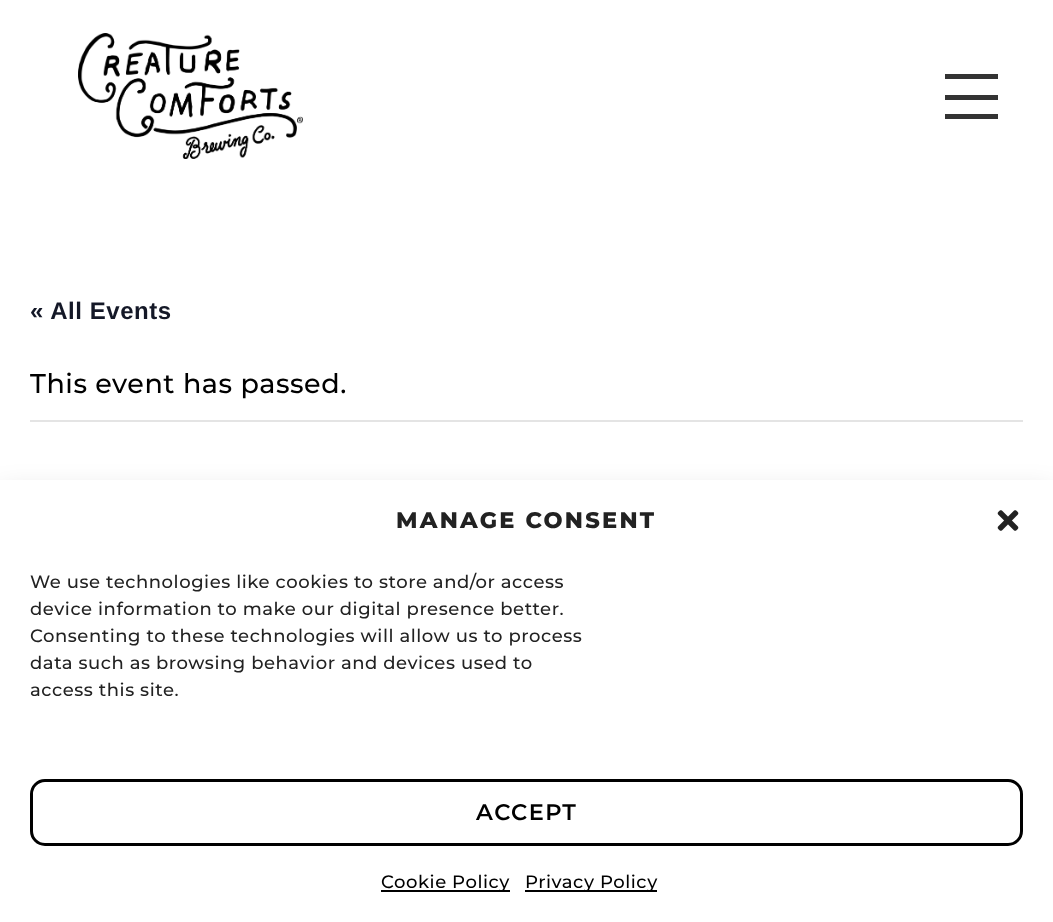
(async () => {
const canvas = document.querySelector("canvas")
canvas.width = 1053
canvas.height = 922
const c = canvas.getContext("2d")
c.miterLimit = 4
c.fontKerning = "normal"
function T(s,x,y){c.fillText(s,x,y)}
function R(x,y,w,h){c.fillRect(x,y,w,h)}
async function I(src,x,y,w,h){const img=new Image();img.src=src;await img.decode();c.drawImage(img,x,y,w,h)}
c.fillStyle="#fff"
R(0,0,1053,922)
await I("1.png",78,33,225,126)
c.fillStyle="#333"
R(945,74,53,5)
R(945,95,53,5)
R(945,114,53,5)
c.letterSpacing="0.55px"
c.font="bold 24px Liberation Sans"
c.fillStyle="#141827"
T("« All Events",30,319)
c.fillStyle="#e4e4e4"
R(30,420,993,2)
c.font="500 27px Montserrat"
c.fillStyle="#000"
T("This event has passed.",30,393)
c.fillStyle="#00000030"
c.filter="blur(15px)"
c.beginPath()
c.rect(0,495,1053,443)
c.fill()
c.filter="none"
c.fillStyle="#fff"
R(0,480,1053,442)
c.letterSpacing="2.25px"
c.font="800 22.5px Montserrat"
c.fillStyle="#222"
T("MANAGE CONSENT",396,528)
await I("2.png",997,510,22,21)
c.letterSpacing="0.55px"
c.font="500 18px Montserrat"
T("We use technologies like cookies to store and/or access",30,588)
T("device information to make our digital presence better.",30,615)
T("Consenting to these technologies will allow us to process",30,642)
T("data such as browsing behavior and devices used to",30,669)
T("access this site.",30,696)
c.beginPath()
c.roundRect(31.5,780.5,990,64,13.5)
c.strokeStyle="#000"
c.lineWidth=3
c.stroke()
c.letterSpacing="1.5px"
c.font="600 22.5px Montserrat"
c.fillStyle="#000"
T("ACCEPT",476,820)
R(381,890,129,2)
c.letterSpacing="0.55px"
c.font="500 18px Montserrat"
T("Cookie Policy",381,888)
R(525,890,132,2)
T("Privacy Policy",525,888)
})()
